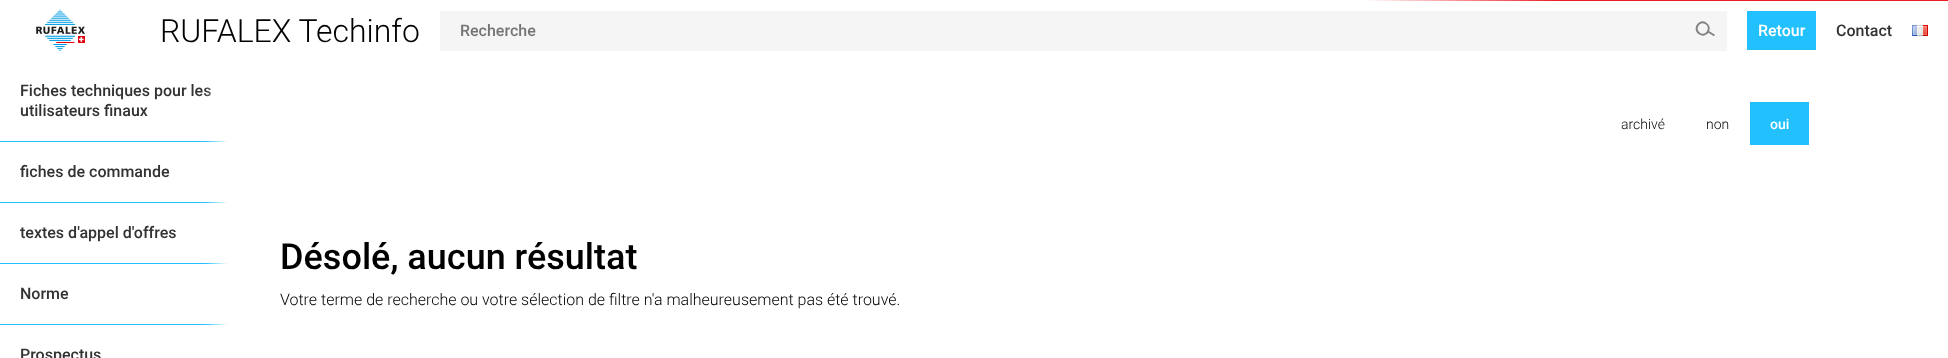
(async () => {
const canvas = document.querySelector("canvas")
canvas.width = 1948
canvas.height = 358
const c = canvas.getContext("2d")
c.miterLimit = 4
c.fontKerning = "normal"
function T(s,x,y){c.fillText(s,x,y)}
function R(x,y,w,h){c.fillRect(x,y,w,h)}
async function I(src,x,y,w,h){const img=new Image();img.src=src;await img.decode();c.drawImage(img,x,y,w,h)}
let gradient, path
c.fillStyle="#fff"
R(0,0,1948,358)
gradient = c.createLinearGradient(0,.5,1948,.5)
gradient.addColorStop(0,"#fff")
gradient.addColorStop(.7,"#fff")
gradient.addColorStop(.8,"#ed1c24")
gradient.addColorStop(1,"#ed1c24")
c.fillStyle = gradient
R(1366,0,582,1)
await I("1.png",36,9,49,42)
c.font="300 32px Roboto"
c.fillStyle="#000"
T("RUFALEX Techinfo",160,42)
c.fillStyle="#f5f5f5"
R(440,11,1287,40)
c.font="500 16px Roboto"
c.fillStyle="#757575"
T("Recherche",460,36)
path = new Path2D("M1697.5 25.5c4-7 14-1 10.5 6c-4 7-14.5 1-10.5-6zm10.5 6l6.5 4")
c.strokeStyle="#838383"
c.lineWidth=2
c.stroke(path)
c.fillStyle="#22c0fc"
R(1747,11,69,39)
c.fillStyle="#fff"
T("Retour",1758,36)
c.fillStyle="#333"
T("Contact",1836,36)
await I("2.png",1912,25,16,11)
c.fillStyle="#22c0fc"
R(0,141,228,1)
c.fillStyle="#333"
T("Fiches techniques pour les",20,96)
T("utilisateurs finaux",20,116)
c.fillStyle="#22c0fc"
R(0,202,228,1)
c.fillStyle="#333"
T("fiches de commande",20,177)
c.fillStyle="#22c0fc"
R(0,263,228,1)
c.fillStyle="#333"
T("textes d'appel d'offres",20,238)
c.fillStyle="#22c0fc"
R(0,324,228,1)
c.fillStyle="#333"
T("Norme",20,299)
T("Prospectus",20,360)
gradient = c.createLinearGradient(205,210,240,210)
gradient.addColorStop(0,"#ffffff00")
gradient.addColorStop(.65,"#fff")
c.fillStyle = gradient
R(205,87,23,238)
c.font="300 14px Roboto"
c.fillStyle="#000"
T("archivé",1621,129)
T("non",1706,129)
c.fillStyle="#22c0fc"
R(1750,102,59,43)
c.font="500 14px Roboto"
c.fillStyle="#fff"
T("oui",1770,129)
c.font="500 36px Roboto"
c.fillStyle="#000"
T("Désolé, aucun résultat",280,269)
c.font="300 16px Roboto"
T("Votre terme de recherche ou votre sélection de filtre n'a malheureusement pas été trouvé.",280,305)
})()
